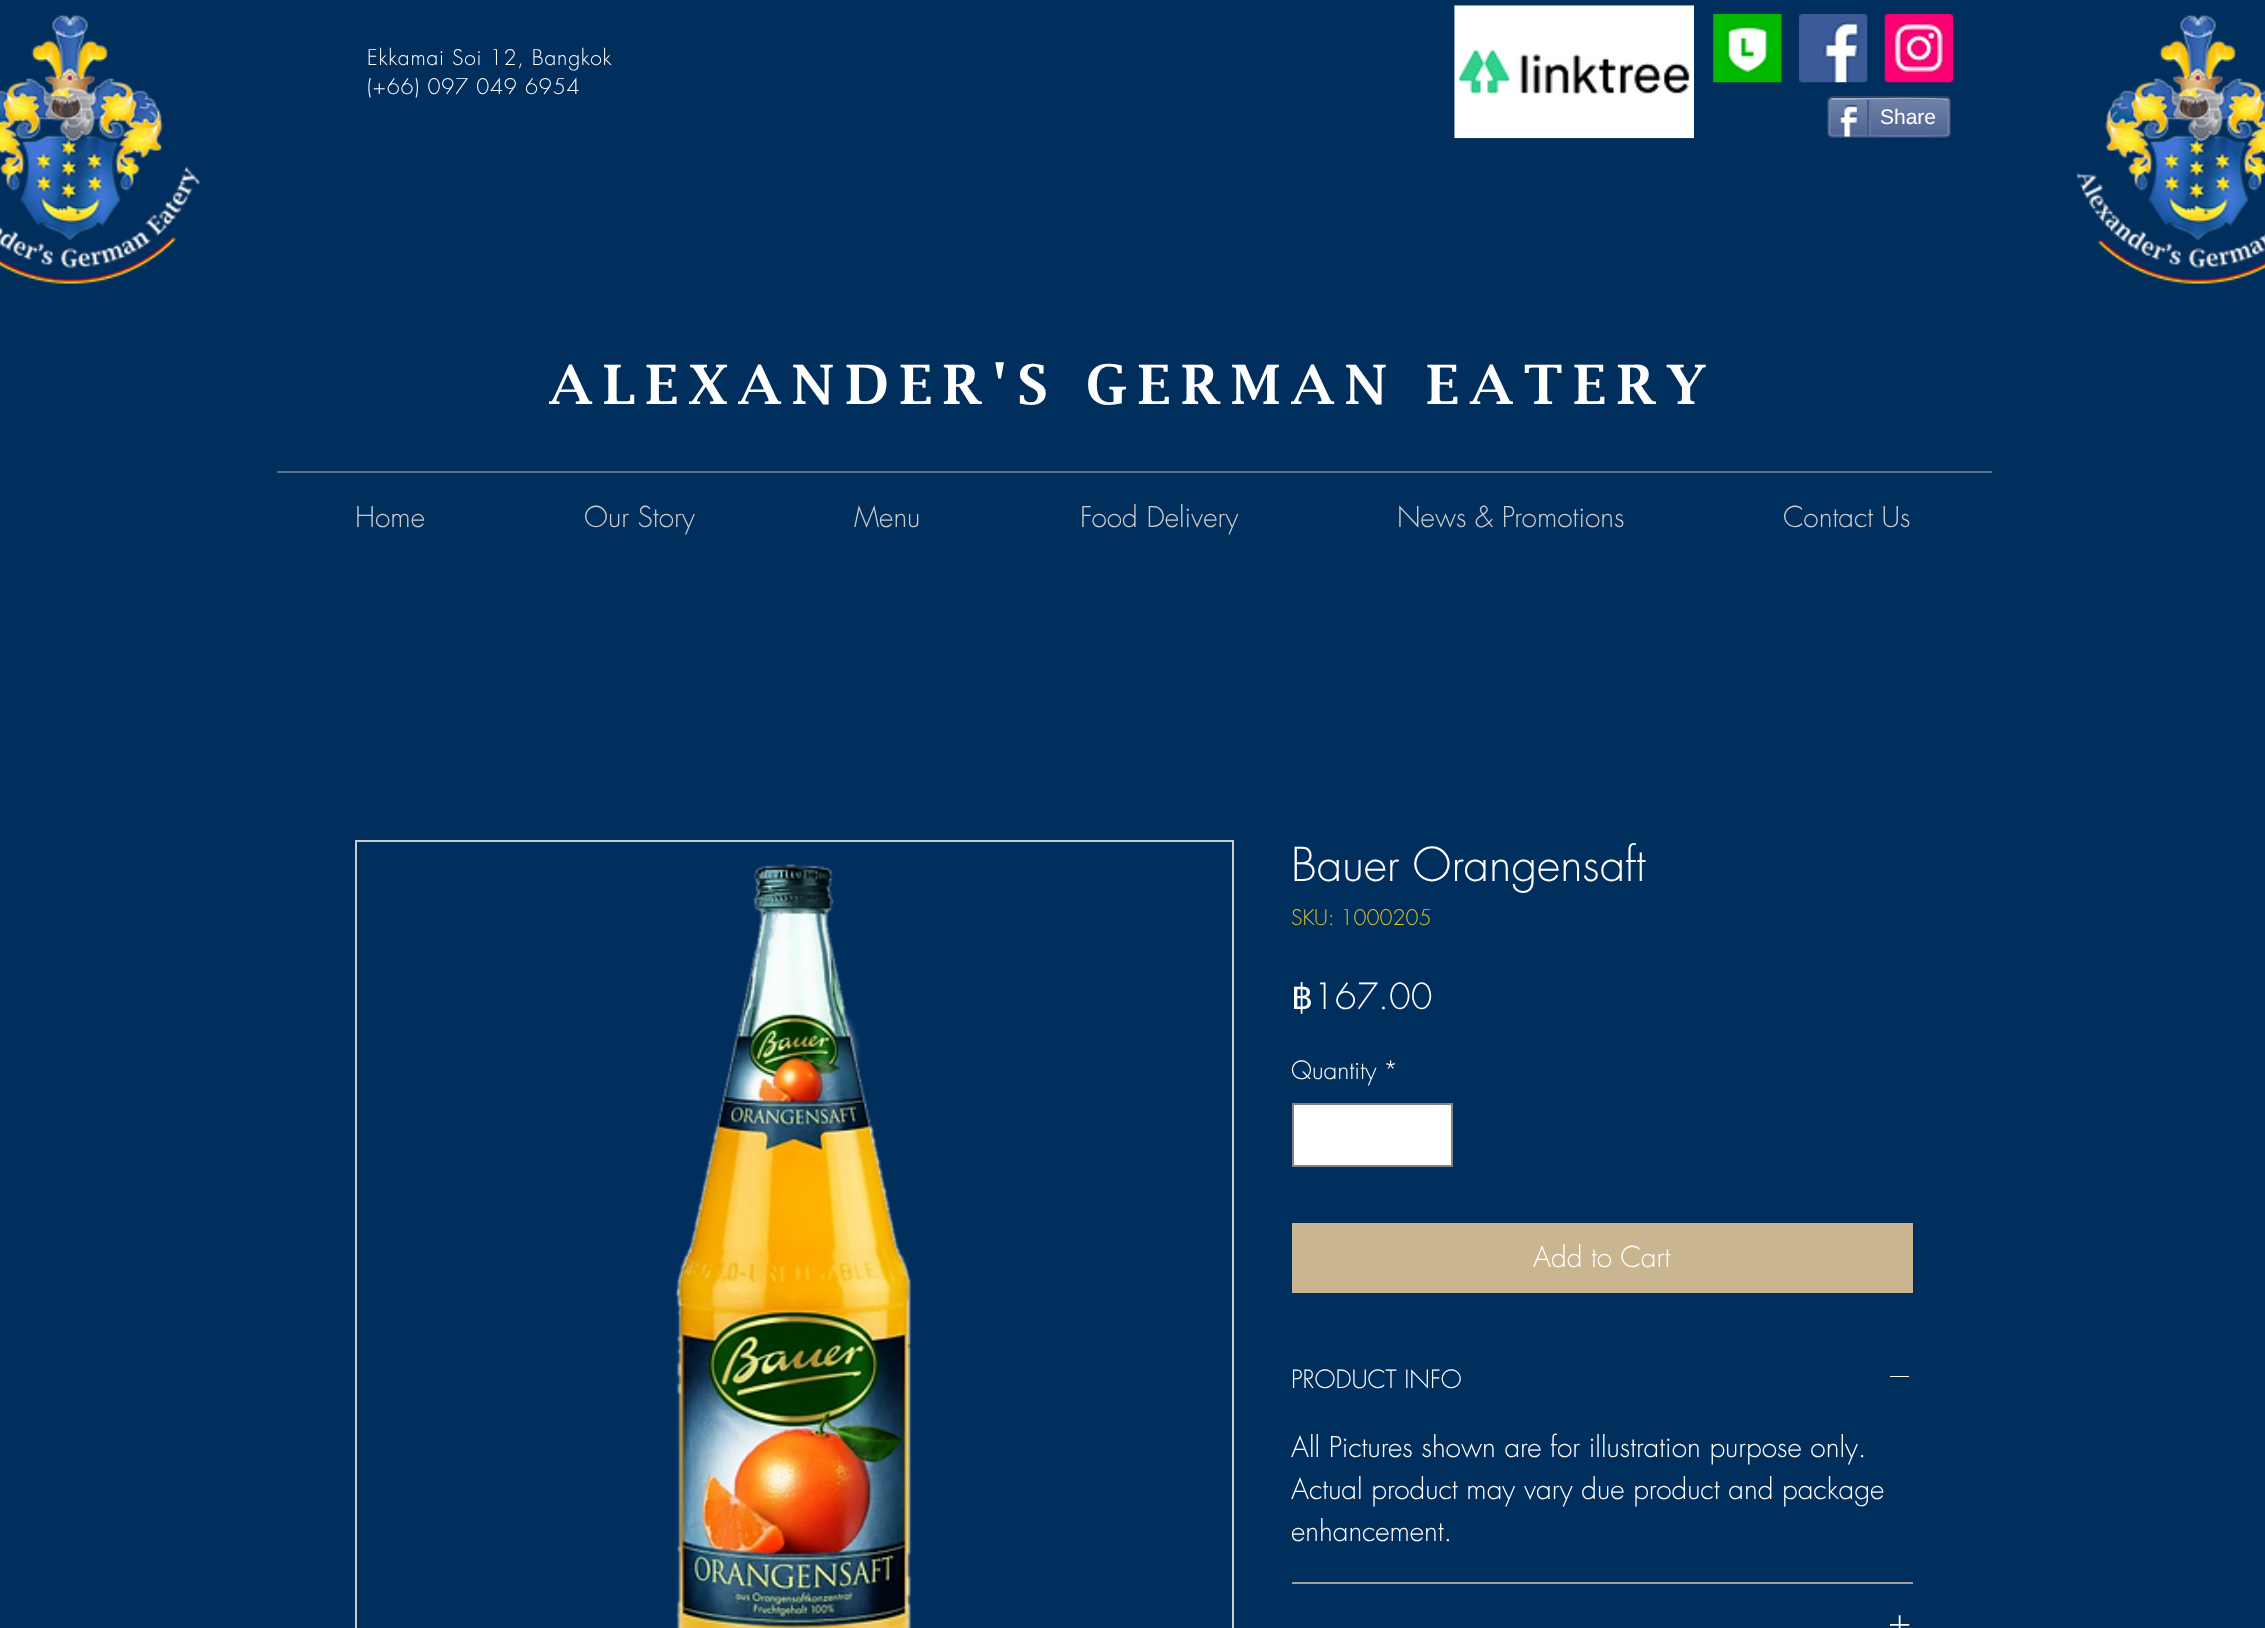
(async () => {
const canvas = document.querySelector("canvas")
canvas.width = 2265
canvas.height = 1628
const c = canvas.getContext("2d")
c.miterLimit = 4
c.fontKerning = "normal"
function T(s,x,y){c.fillText(s,x,y)}
function R(x,y,w,h){c.fillRect(x,y,w,h)}
async function I(src,x,y,w,h){const img=new Image();img.src=src;await img.decode();c.drawImage(img,x,y,w,h)}
let path
c.fillStyle="#002e5d"
R(0,0,2265,1628)
await I("1.png",0,14,200,270)
c.letterSpacing="0.8px"
c.font="300 21px futura"
c.fillStyle="#fff"
T("Ekkamai Soi 12, Bangkok",367,65)
T("(+66) 097 049 6954",367,94)
await I("2.png",1454,5,240,134)
await I("3.png",2075,14,190,270)
await I("4.png",1713,14,69,69)
await I("5.png",1799,14,69,69)
await I("6.png",1884,14,69,69)
c.beginPath()
c.roundRect(1828,97,122,40,4)
c.strokeStyle="#2d4565"
c.lineWidth=2
c.stroke()
await I("7.png",1828,99,122,38)
path = new Path2D("M1830.5 99.5l1.5-.5h19c10 0 94.5-1 96.5 .5h.5")
c.strokeStyle="#9aabc6"
c.lineWidth=1.8
c.stroke(path)
path = new Path2D("M1948 99.5c.5 .5 .5 1.5 .5 2v31.5c0 .5 0 1.5-.5 2")
c.strokeStyle="#6f83ad"
c.stroke(path)
path = new Path2D("M1948 135h-.5c-2 1.5-86.5 .5-96.5 .5h-19l-1.5-.5")
c.strokeStyle="#6176a3"
c.stroke(path)
path = new Path2D("M1830.5 135c-.5-.5-1-1.5-1-2v-31.5c0-.5 .5-1.5 1-2")
c.strokeStyle="#6f83ad"
c.stroke(path)
await I("8.png",1839,105,18,32)
c.fillStyle="#425e85"
R(1867,100,2,37)
c.letterSpacing="0px"
c.font="21px Liberation Sans"
c.fillStyle="#fff"
T("Share",1880,124)
c.fillStyle="#6176a3"
R(1869,100,2,35)
c.letterSpacing="10.85px"
c.font="600 54.25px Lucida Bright"
c.fillStyle="#fff"
T("ALEXANDER'S GERMAN EATERY",549,404)
c.fillStyle="#58728d"
R(277,471,1715,2)
c.letterSpacing="0px"
c.font="300 28px futura"
c.fillStyle="#ccc"
T("Home",355,527)
T("Our Story",584,527)
T("Menu",854,527)
T("Food Delivery",1080,527)
T("News & Promotions",1397,527)
T("Contact Us",1783,527)
c.strokeStyle="#ccc"
c.lineWidth=2
c.strokeRect(356,841,877,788)
await I("9.png",675,864,237,764)
c.font="300 45.5px futura"
c.fillStyle="#fff"
T("Bauer Orangensaft",1291,881)
c.font="300 21px futura"
c.fillStyle="#dec328"
T("SKU: 1000205",1291,925)
c.font="35px DejaVu Sans"
c.fillStyle="#fff"
T("฿",1291,1009)
c.font="300 35px futura"
T("167.00",1313,1009)
c.font="300 24.5px futura"
T("Quantity",1291,1079)
T("*",1383,1079)
c.beginPath()
c.rect(1293,1104,159,62)
c.fill()
c.strokeStyle="#828282"
c.stroke()
c.fillStyle="#c9b691"
R(1292,1223,621,70)
c.font="300 28px futura"
c.fillStyle="#fff"
T("Add to Cart",1533,1267)
c.fillStyle="#a0a09f"
R(1292,1582,621,2)
c.font="300 24.5px futura"
c.fillStyle="#fff"
T("PRODUCT INFO",1291,1388)
R(1890,1376,19,1)
c.font="300 28px futura"
T("All Pictures shown are for illustration purpose only.",1291,1457)
T("Actual product may vary due product and package",1291,1499)
T("enhancement.",1291,1541)
await I("10.png",1890,1615,20,13)
})()
